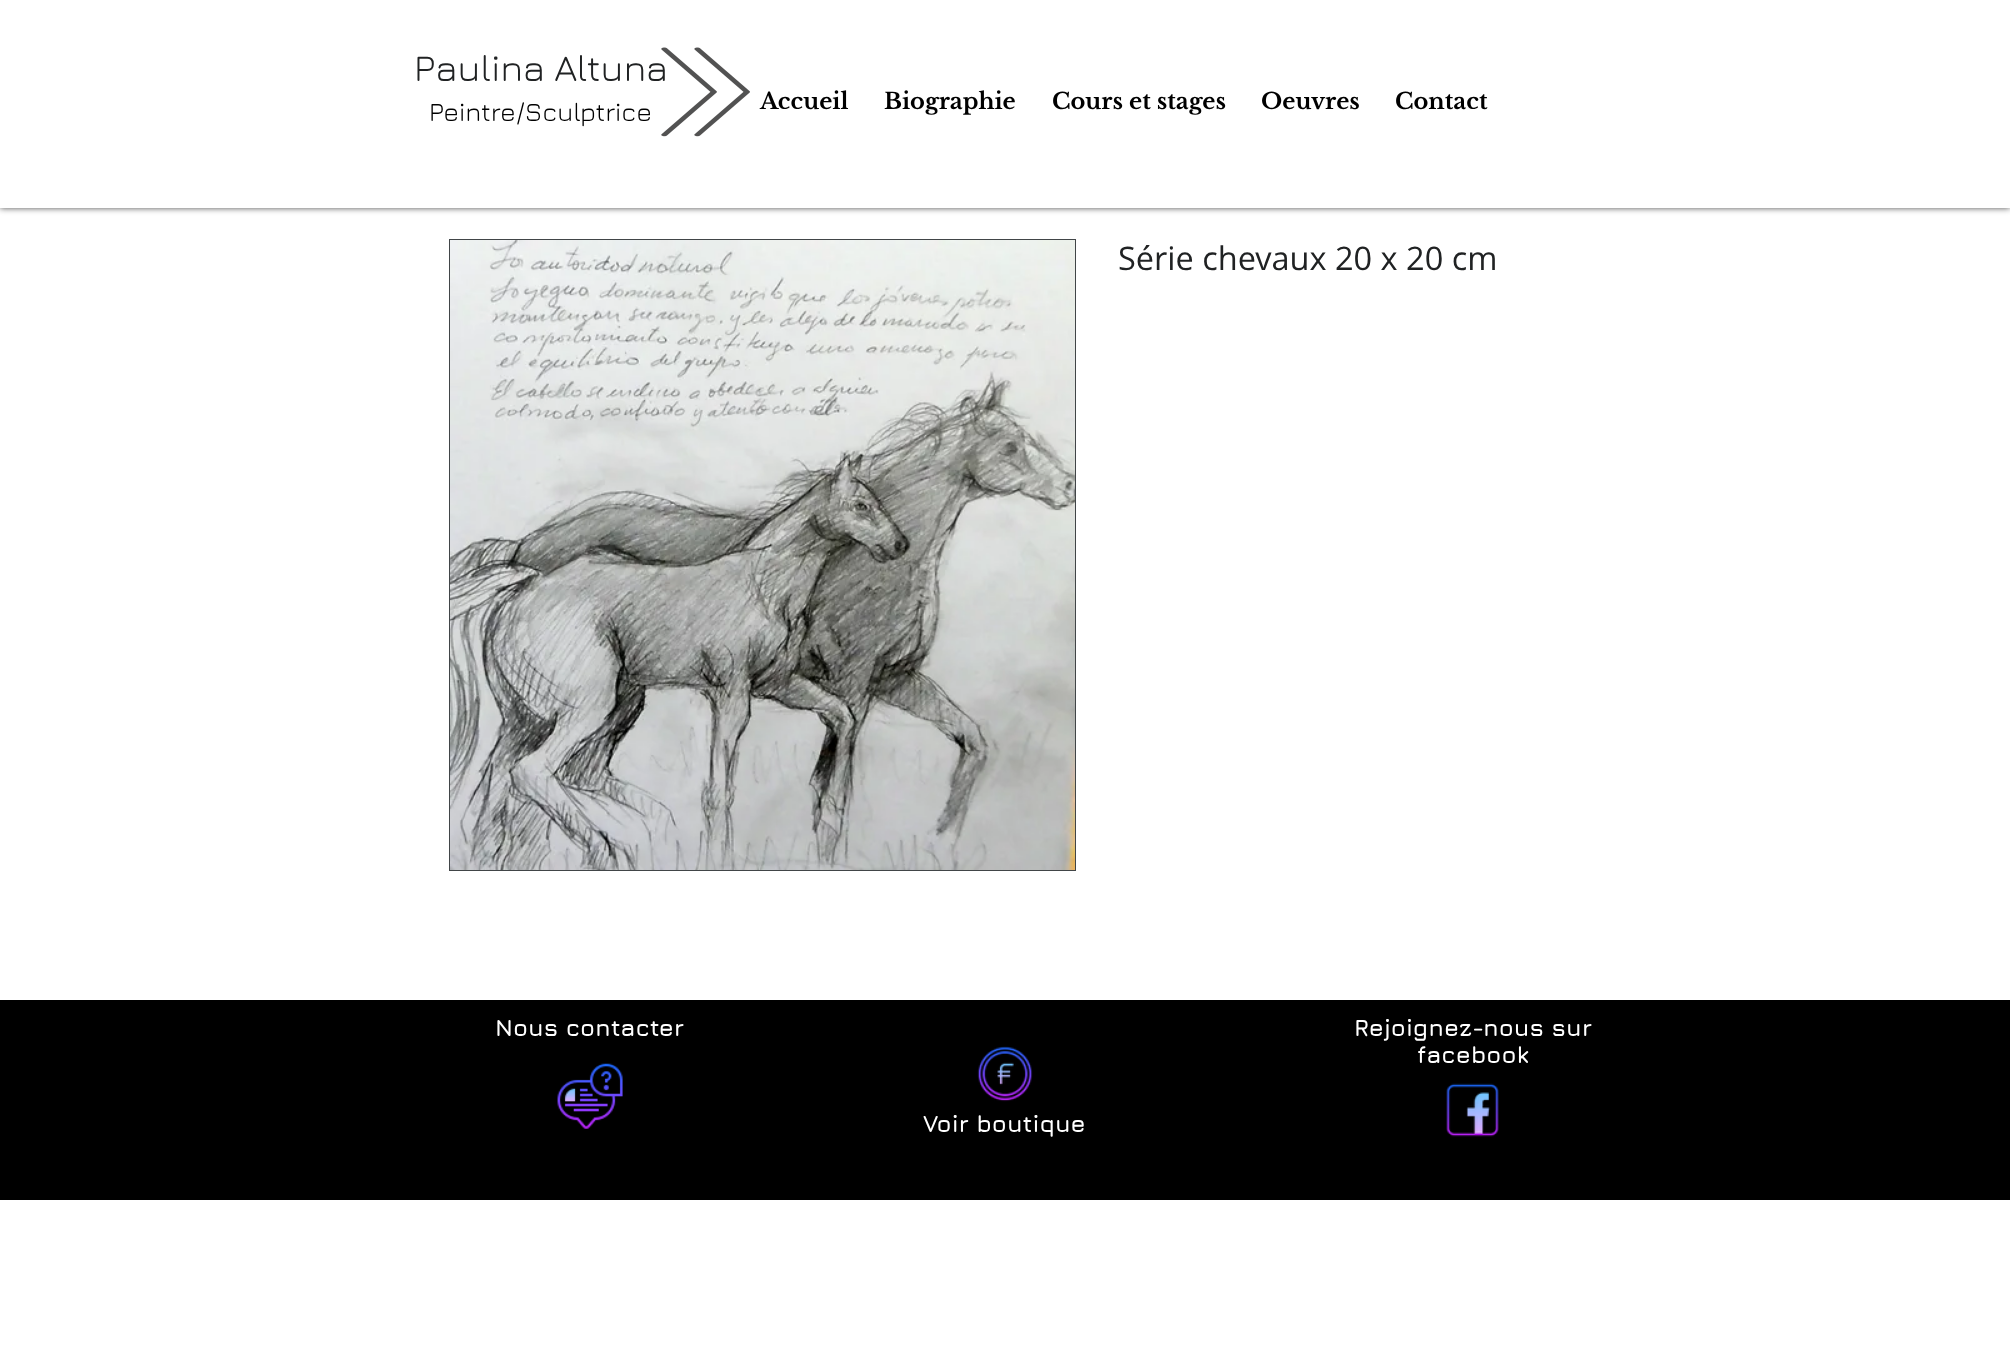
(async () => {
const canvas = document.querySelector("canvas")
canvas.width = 2010
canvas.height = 1364
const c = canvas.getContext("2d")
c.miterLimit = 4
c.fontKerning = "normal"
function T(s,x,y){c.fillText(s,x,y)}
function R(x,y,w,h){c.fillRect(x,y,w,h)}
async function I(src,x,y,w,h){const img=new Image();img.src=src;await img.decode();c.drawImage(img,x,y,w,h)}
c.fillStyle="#fff"
R(0,0,2010,1364)
c.fillStyle="#000000b3"
c.filter="blur(3px)"
c.beginPath()
c.rect(0,0,2010,208)
c.fill()
c.filter="none"
c.fillStyle="#fff"
R(0,0,2010,208)
c.font="37.5px Jura"
c.fillStyle="#202223"
T("Paulina Altuna",414,81)
await I("1.png",661,47,89,90)
c.font="26.25px Jura"
c.fillStyle="#000"
T("Peintre/Sculptrice",429,121)
c.font="bold 22.5px Libre Baskerville"
T("Accueil",760,109)
T("Biographie",884,109)
T("Cours et stages",1052,109)
T("Oeuvres",1261,109)
T("Contact",1395,109)
c.strokeStyle="#414547"
c.strokeRect(449.5,239.5,626,631)
await I("2.png",450,240,625,630)
c.font="32.5px Open Sans"
c.fillStyle="#202223"
T("Série chevaux 20 x 20 cm",1118,270)
c.fillStyle="#000"
R(0,1000,2010,200)
c.font="bold 23.75px Jura"
c.fillStyle="#fff"
T("Nous contacter",495,1036)
T("Rejoignez-nous sur",1354,1036)
T("facebook",1417,1063)
await I("3.png",557,1063,66,66)
await I("4.png",977,1046,56,56)
await I("5.png",1446,1083,53,54)
T("Voir boutique",923,1132)
})()
